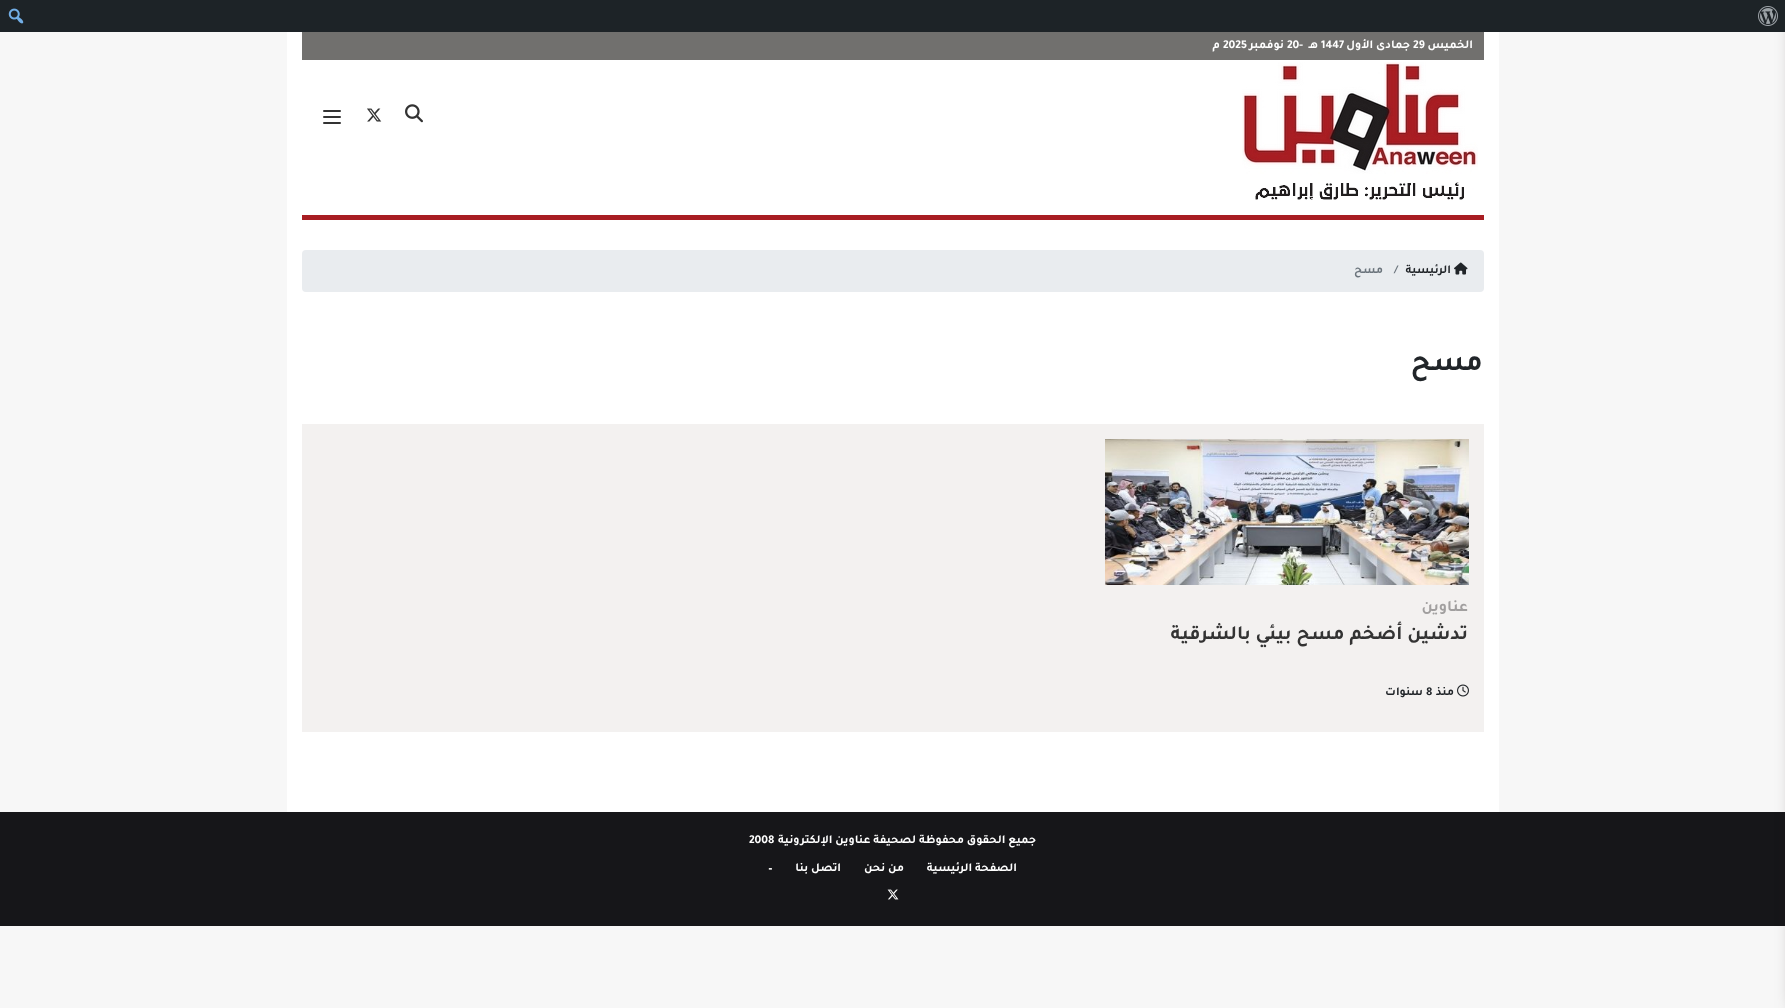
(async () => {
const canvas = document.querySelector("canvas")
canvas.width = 1785
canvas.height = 1008
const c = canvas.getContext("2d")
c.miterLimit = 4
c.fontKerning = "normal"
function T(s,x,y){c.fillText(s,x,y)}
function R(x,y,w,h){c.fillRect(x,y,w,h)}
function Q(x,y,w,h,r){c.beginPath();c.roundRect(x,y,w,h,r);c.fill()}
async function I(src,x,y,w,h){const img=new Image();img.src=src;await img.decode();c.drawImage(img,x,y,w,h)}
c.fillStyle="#f7f7f7"
R(0,0,1785,1008)
c.fillStyle="#161619"
R(0,812,1785,114)
c.fillStyle="#211717ad"
c.filter="blur(10px)"
c.beginPath()
c.rect(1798,0,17,1008)
c.fill()
c.filter="none"
c.fillStyle="#1d2327"
R(0,0,1785,32)
await I("1.png",1758,6,20,20)
await I("2.png",8,8,16,16)
c.fillStyle="#fff"
R(287,32,1212,780)
c.fillStyle="#71706e"
R(302,32,1182,28)
c.direction="rtl"
c.font="bold 12px Tajawal"
c.fillStyle="#fff"
T("الخميس",1473,48)
c.direction="ltr"
T("29",1413,48)
c.direction="rtl"
T("جمادى الأول",1410,48)
c.direction="ltr"
T("1447",1321,48)
c.direction="rtl"
T("هـ",1318,48)
c.direction="ltr"
T("20-",1287,48)
c.direction="rtl"
T("نوفمبر",1284,48)
c.direction="ltr"
T("2025",1223,48)
c.direction="rtl"
T("م",1220,48)
c.fillStyle="#a81d22"
R(302,215,1182,5)
await I("3.png",1242,62,236,138)
await I("4.png",405,104,18,19)
await I("5.png",367,108,15,14)
c.fillStyle="#333"
Q(323,110,18,2,1)
Q(323,116,18,2,1)
Q(323,122,18,2,1)
c.fillStyle="#e9ecef"
Q(302,250,1182,42,4)
await I("6.png",1454,262,14,13)
c.fillStyle="#212529"
T("الرئيسية",1451,273)
c.direction="ltr"
c.fillStyle="#6c757d"
T("/",1394,273)
c.direction="rtl"
T("مسح",1383,273)
c.font="bold 30px Tajawal"
c.fillStyle="#212529"
T("مسح",1483,370)
c.fillStyle="#f3f1f0"
R(302,424,1182,308)
await I("7.png",1105,439,364,146)
c.font="bold 16px Tajawal"
c.fillStyle="#a19f9f"
T("عناوين",1468,611)
c.font="bold 20px Tajawal"
c.fillStyle="#333"
T("تدشين أضخم مسح بيئي بالشرقية",1468,639)
await I("8.png",1457,684,12,13)
c.font="bold 12px Tajawal"
c.fillStyle="#212529"
T("منذ",1454,695)
c.direction="ltr"
T("8",1426,695)
c.direction="rtl"
T("سنوات",1423,695)
c.fillStyle="#fff"
T("جميع الحقوق محفوظة لصحيفة عناوين الإلكترونية",1036,843)
c.direction="ltr"
T("2008",749,843)
c.direction="rtl"
T("الصفحة الرئيسية",1017,871)
T("من نحن",904,871)
T("اتصل بنا",841,871)
c.direction="ltr"
T("–",768,871)
await I("9.png",887,889,12,11)
})()
